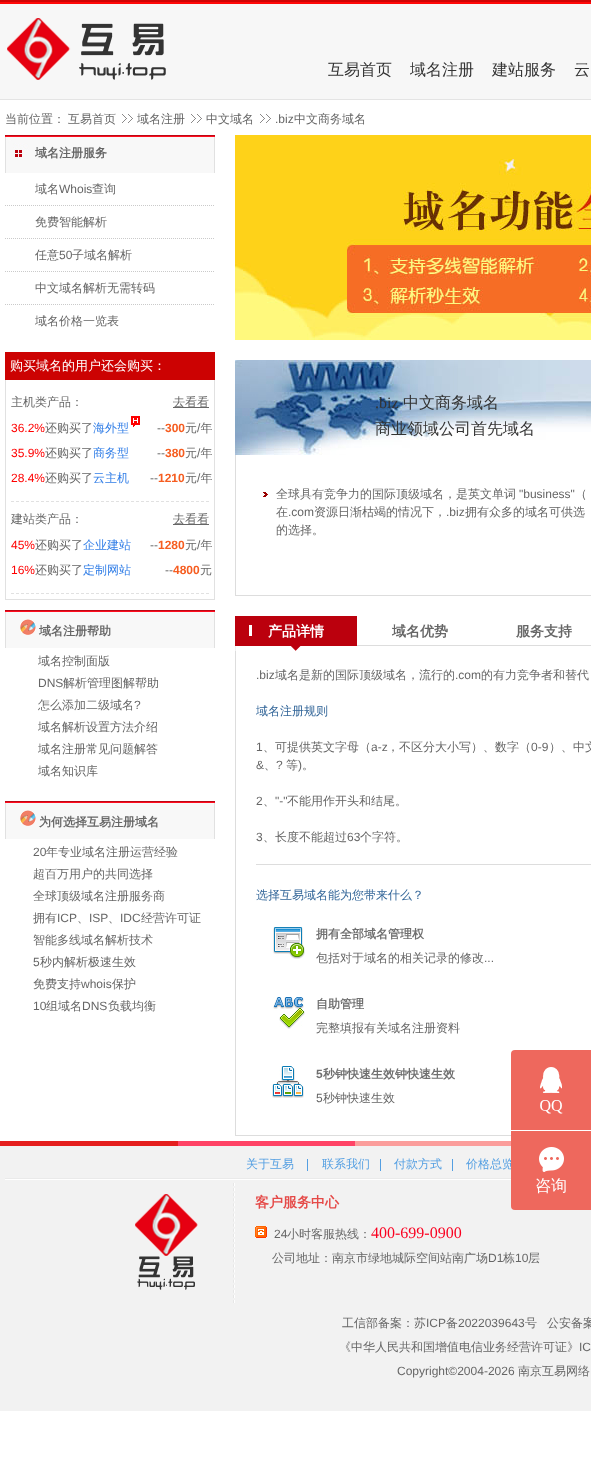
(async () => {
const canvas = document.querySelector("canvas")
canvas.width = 591
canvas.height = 1460
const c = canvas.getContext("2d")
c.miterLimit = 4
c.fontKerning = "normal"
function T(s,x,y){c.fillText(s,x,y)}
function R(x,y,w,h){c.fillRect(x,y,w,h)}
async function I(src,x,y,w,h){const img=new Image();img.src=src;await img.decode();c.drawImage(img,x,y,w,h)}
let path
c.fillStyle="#fff"
R(0,0,591,1460)
await I("1.png",0,0,591,100)
await I("2.png",7,18,159,62)
c.font="500 16px WenQuanYi Zen Hei"
c.fillStyle="#333"
T("互易首页",328,75)
T("域名注册",410,75)
T("建站服务",492,75)
T("云",574,75)
c.font="500 12px WenQuanYi Zen Hei"
c.fillStyle="#666"
T("当前位置：",5,123)
T("互易首页",68,123)
await I("3.png",122,114,11,9)
T("域名注册",137,123)
await I("3.png",191,114,11,9)
T("中文域名",206,123)
await I("3.png",260,114,11,9)
c.font="12px Liberation Sans"
T(".biz",275,123)
c.font="500 12px WenQuanYi Zen Hei"
T("中文商务域名",294,123)
await I("4.png",5,135,210,38)
c.font="bold 12px WenQuanYi Zen Hei"
T("域名注册服务",35,157)
path = new Path2D("M5 205.5h210")
c.strokeStyle="#cacaca"
c.setLineDash([1,1])
c.stroke(path)
c.font="500 12px WenQuanYi Zen Hei"
T("域名",35,193)
c.font="12px Liberation Sans"
T("Whois",59,193)
c.font="500 12px WenQuanYi Zen Hei"
T("查询",92,193)
path = new Path2D("M5 238.5h210")
c.stroke(path)
T("免费智能解析",35,226)
path = new Path2D("M5 271.5h210")
c.stroke(path)
T("任意",35,259)
c.font="12px Liberation Sans"
T("50",59,259)
c.font="500 12px WenQuanYi Zen Hei"
T("子域名解析",72,259)
path = new Path2D("M5 304.5h210")
c.stroke(path)
T("中文域名解析无需转码",35,292)
T("域名价格一览表",35,325)
c.fillStyle="#cc0202"
R(5,352,210,28)
c.font="500 13px WenQuanYi Zen Hei"
c.fillStyle="#fff"
T("购买域名的用户还会购买：",10,370)
c.fillStyle="#e1e1e1"
R(214,380,1,220)
R(5,599,210,1)
R(5,380,1,220)
c.font="500 12px WenQuanYi Zen Hei"
c.fillStyle="#666"
T("主机类产品：",11,406)
R(173,407,36,1)
T("去看看",173,406)
path = new Path2D("M11 501.5h198")
c.strokeStyle="#e1e1e1"
c.setLineDash([3,2])
c.stroke(path)
c.font="12px Liberation Sans"
c.fillStyle="#f00"
T("36.2%",11,432)
c.font="500 12px WenQuanYi Zen Hei"
c.fillStyle="#666"
T("还购买了",45,432)
c.fillStyle="#317ee7"
T("海外型",93,432)
await I("5.png",131,416,9,11)
c.font="12px Liberation Sans"
c.fillStyle="#666"
T("--",157,432)
c.font="bold 12px Liberation Sans"
c.fillStyle="#f65d20"
T("300",165,432)
c.font="500 12px WenQuanYi Zen Hei"
c.fillStyle="#666"
T("元 年",185,432)
c.font="12px Liberation Sans"
T("/",197,432)
c.fillStyle="#f00"
T("35.9%",11,457)
c.font="500 12px WenQuanYi Zen Hei"
c.fillStyle="#666"
T("还购买了",45,457)
c.fillStyle="#317ee7"
T("商务型",93,457)
c.font="12px Liberation Sans"
c.fillStyle="#666"
T("--",157,457)
c.font="bold 12px Liberation Sans"
c.fillStyle="#f65d20"
T("380",165,457)
c.font="500 12px WenQuanYi Zen Hei"
c.fillStyle="#666"
T("元 年",185,457)
c.font="12px Liberation Sans"
T("/",197,457)
c.fillStyle="#f00"
T("28.4%",11,482)
c.font="500 12px WenQuanYi Zen Hei"
c.fillStyle="#666"
T("还购买了",45,482)
c.fillStyle="#317ee7"
T("云主机",93,482)
c.font="bold 12px Liberation Sans"
c.fillStyle="#f65d20"
T("1210",158,482)
c.font="500 12px WenQuanYi Zen Hei"
c.fillStyle="#666"
T("元 年",185,482)
c.font="12px Liberation Sans"
T("--",150,482)
T("/",197,482)
c.font="500 12px WenQuanYi Zen Hei"
T("建站类产品：",11,523)
R(173,524,36,1)
T("去看看",173,523)
path = new Path2D("M11 593.5h198")
c.stroke(path)
c.font="12px Liberation Sans"
c.fillStyle="#f00"
T("45%",11,549)
c.font="500 12px WenQuanYi Zen Hei"
c.fillStyle="#666"
T("还购买了",35,549)
c.fillStyle="#317ee7"
T("企业建站",83,549)
c.font="bold 12px Liberation Sans"
c.fillStyle="#f65d20"
T("1280",158,549)
c.font="500 12px WenQuanYi Zen Hei"
c.fillStyle="#666"
T("元 年",185,549)
c.font="12px Liberation Sans"
T("--",150,549)
T("/",197,549)
c.fillStyle="#f00"
T("16%",11,574)
c.font="500 12px WenQuanYi Zen Hei"
c.fillStyle="#666"
T("还购买了",35,574)
c.fillStyle="#317ee7"
T("定制网站",83,574)
c.font="12px Liberation Sans"
c.fillStyle="#666"
T("--",165,574)
c.font="bold 12px Liberation Sans"
c.fillStyle="#f65d20"
T("4800",173,574)
c.font="500 12px WenQuanYi Zen Hei"
c.fillStyle="#666"
T("元",200,574)
await I("6.png",5,610,210,38)
await I("7.png",20,619,16,16)
c.font="bold 12px WenQuanYi Zen Hei"
T("域名注册帮助",39,635)
c.font="500 12px WenQuanYi Zen Hei"
T("域名控制面版",38,665)
c.font="12px Liberation Sans"
T("DNS",38,687)
c.font="500 12px WenQuanYi Zen Hei"
T("解析管理图解帮助",63,687)
T("怎么添加二级域名",38,709)
c.font="12px Liberation Sans"
T("?",134,709)
c.font="500 12px WenQuanYi Zen Hei"
T("域名解析设置方法介绍",38,731)
T("域名注册常见问题解答",38,753)
T("域名知识库",38,775)
await I("6.png",5,801,210,38)
await I("7.png",20,810,16,16)
c.font="bold 12px WenQuanYi Zen Hei"
T("为何选择互易注册域名",39,826)
c.font="12px Liberation Sans"
T("20",33,856)
c.font="500 12px WenQuanYi Zen Hei"
T("年专业域名注册运营经验",46,856)
T("超百万用户的共同选择",33,878)
T("全球顶级域名注册服务商",33,900)
T("拥有",33,922)
c.font="12px Liberation Sans"
T("ICP",57,922)
c.font="500 12px WenQuanYi Zen Hei"
T("、",77,922)
c.font="12px Liberation Sans"
T("ISP",89,922)
c.font="500 12px WenQuanYi Zen Hei"
T("、",108,922)
c.font="12px Liberation Sans"
T("IDC",120,922)
c.font="500 12px WenQuanYi Zen Hei"
T("经营许可证",141,922)
T("智能多线域名解析技术",33,944)
c.font="12px Liberation Sans"
T("5",33,966)
c.font="500 12px WenQuanYi Zen Hei"
T("秒内解析极速生效",40,966)
T("免费支持",33,988)
c.font="12px Liberation Sans"
T("whois",81,988)
c.font="500 12px WenQuanYi Zen Hei"
T("保护",112,988)
c.font="12px Liberation Sans"
T("10",33,1010)
c.font="500 12px WenQuanYi Zen Hei"
T("组域名",46,1010)
c.font="12px Liberation Sans"
T("DNS",82,1010)
c.font="500 12px WenQuanYi Zen Hei"
T("负载均衡",108,1010)
await I("8.png",235,135,356,205)
await I("9.png",235,360,356,95)
c.font="16px Liberation Serif"
c.fillStyle="#333"
T(".biz",375,408)
c.font="500 16px WenQuanYi Zen Hei"
T("中文商务域名",403,408)
T("商业领域公司首先域名",375,434)
c.fillStyle="#ddd"
R(235,595,356,1)
R(235,455,1,141)
await I("10.png",263,492,5,5)
c.font="500 12px WenQuanYi Zen Hei"
c.fillStyle="#666"
T("全球具有竞争力的国际顶级域名，是英文单词",276,498)
c.font="12px Liberation Sans"
T("\"business\"",519,498)
c.font="500 12px WenQuanYi Zen Hei"
T("（",575,498)
T("在",276,516)
c.font="12px Liberation Sans"
T(".com",288,516)
c.font="500 12px WenQuanYi Zen Hei"
T("资源日渐枯竭的情况下，",314,516)
c.font="12px Liberation Sans"
T(".biz",446,516)
c.font="500 12px WenQuanYi Zen Hei"
T("拥有众多的域名可供选",465,516)
T("的选择。",276,534)
c.fillStyle="#ddd"
R(357,645,234,1)
R(235,1135,276,1)
R(235,646,1,490)
await I("11.png",235,616,122,35)
c.font="bold 14px WenQuanYi Zen Hei"
c.fillStyle="#fff"
T("产品详情",268,636)
c.fillStyle="#666"
T("域名优势",392,636)
T("服务支持",516,636)
c.fillStyle="#ddd"
R(256,864,335,1)
c.font="12px Liberation Sans"
c.fillStyle="#666"
T(".biz",256,679)
c.font="500 12px WenQuanYi Zen Hei"
T("域名是新的国际顶级域名，流行的",275,679)
c.font="12px Liberation Sans"
T(".com",455,679)
c.font="500 12px WenQuanYi Zen Hei"
T("的有力竞争者和替代",481,679)
c.fillStyle="#369"
T("域名注册规则",256,715)
c.font="12px Liberation Sans"
c.fillStyle="#666"
T("1",256,751)
c.font="500 12px WenQuanYi Zen Hei"
T("、可提供英文字母（",263,751)
c.font="12px Liberation Sans"
T("a-z",371,751)
c.font="500 12px WenQuanYi Zen Hei"
T("，不区分大小写）、数字（",387,751)
c.font="12px Liberation Sans"
T("0-9",531,751)
c.font="500 12px WenQuanYi Zen Hei"
T("）、中文",549,751)
c.font="12px Liberation Sans"
T("&",256,769)
c.font="500 12px WenQuanYi Zen Hei"
T("、",264,769)
c.font="12px Liberation Sans"
T("?",276,769)
c.font="500 12px WenQuanYi Zen Hei"
T("等",286,769)
c.font="12px Liberation Sans"
T(")",298,769)
c.font="500 12px WenQuanYi Zen Hei"
T("。",302,769)
c.font="12px Liberation Sans"
T("2",256,805)
T("\"-\"",275,805)
c.font="500 12px WenQuanYi Zen Hei"
T("不能用作开头和结尾。",287,805)
T("、",263,805)
c.font="12px Liberation Sans"
T("3",256,841)
c.font="500 12px WenQuanYi Zen Hei"
T("、长度不能超过",263,841)
c.font="12px Liberation Sans"
T("63",347,841)
c.font="500 12px WenQuanYi Zen Hei"
T("个字符。",360,841)
c.fillStyle="#369"
T("选择互易域名能为您带来什么？",256,899)
await I("12.png",273,927,32,32)
c.font="bold 12px WenQuanYi Zen Hei"
c.fillStyle="#6f6f6f"
T("拥有全部域名管理权",316,938)
c.font="500 12px WenQuanYi Zen Hei"
c.fillStyle="#666"
T("包括对于域名的相关记录的修改",316,962)
c.font="12px Liberation Sans"
T("...",484,962)
await I("13.png",272,997,33,32)
c.font="bold 12px WenQuanYi Zen Hei"
c.fillStyle="#6f6f6f"
T("自助管理",316,1008)
c.font="500 12px WenQuanYi Zen Hei"
c.fillStyle="#666"
T("完整填报有关域名注册资料",316,1032)
await I("14.png",272,1066,32,32)
c.font="bold 12px Liberation Sans"
c.fillStyle="#6f6f6f"
T("5",316,1078)
c.font="bold 12px WenQuanYi Zen Hei"
T("秒钟快速生效钟快速生效",323,1078)
c.font="12px Liberation Sans"
c.fillStyle="#666"
T("5",316,1102)
c.font="500 12px WenQuanYi Zen Hei"
T("秒钟快速生效",323,1102)
c.fillStyle="#f2f2f2"
R(0,1146,591,265)
c.fillStyle="#549fe2"
T("价格总览",466,1168)
await I("15.png",511,1050,80,160)
c.fillStyle="#e51f1e"
R(0,1141,178,5)
c.fillStyle="#ff4366"
R(178,1141,177,5)
c.fillStyle="#fb9d9b"
R(355,1141,156,5)
c.fillStyle="#eaeaea"
R(5,1178,506,1)
c.fillStyle="#549fe2"
T("关于互易",246,1168)
R(307,1159,1,12)
T("联系我们",322,1168)
R(380,1159,1,12)
T("付款方式",394,1168)
R(452,1159,1,12)
c.fillStyle="#fff"
R(5,1179,506,1)
path = new Path2D("M233.5 1183v120")
c.strokeStyle="#e6e6e6"
c.setLineDash([3,2.09])
c.stroke(path)
await I("16.png",135,1194,63,96)
path = new Path2D("M234.5 1183v120")
c.strokeStyle="#fff"
c.stroke(path)
c.font="bold 14px WenQuanYi Zen Hei"
c.fillStyle="#e54a48"
T("客户服务中心",255,1207)
await I("17.png",255,1226,12,12)
c.font="12px Liberation Sans"
c.fillStyle="#666"
T("24",274,1238)
c.font="500 12px WenQuanYi Zen Hei"
T("小时客服热线：",287,1238)
c.font="16px Liberation Serif"
c.fillStyle="#fa0120"
T("400-699-0900",371,1238)
c.font="500 12px WenQuanYi Zen Hei"
c.fillStyle="#666"
T("公司地址：南京市绿地城际空间站南广场",272,1262)
c.font="12px Liberation Sans"
T("D1",488,1262)
c.font="500 12px WenQuanYi Zen Hei"
T("栋",503,1262)
c.font="12px Liberation Sans"
T("10",515,1262)
c.font="500 12px WenQuanYi Zen Hei"
T("层",528,1262)
T("工信部备案：苏",342,1327)
c.font="12px Liberation Sans"
T("ICP",426,1327)
c.font="500 12px WenQuanYi Zen Hei"
T("备",446,1327)
c.font="12px Liberation Sans"
T("2022039643",458,1327)
c.font="500 12px WenQuanYi Zen Hei"
T("号",525,1327)
T("公安备案",547,1327)
T("《中华人民共和国增值电信业务经营许可证》",339,1351)
c.font="12px Liberation Sans"
T("IC",579,1351)
T("Copyright©2004-2026",397,1375)
c.font="500 12px WenQuanYi Zen Hei"
T("南京互易网络",518,1375)
})()
